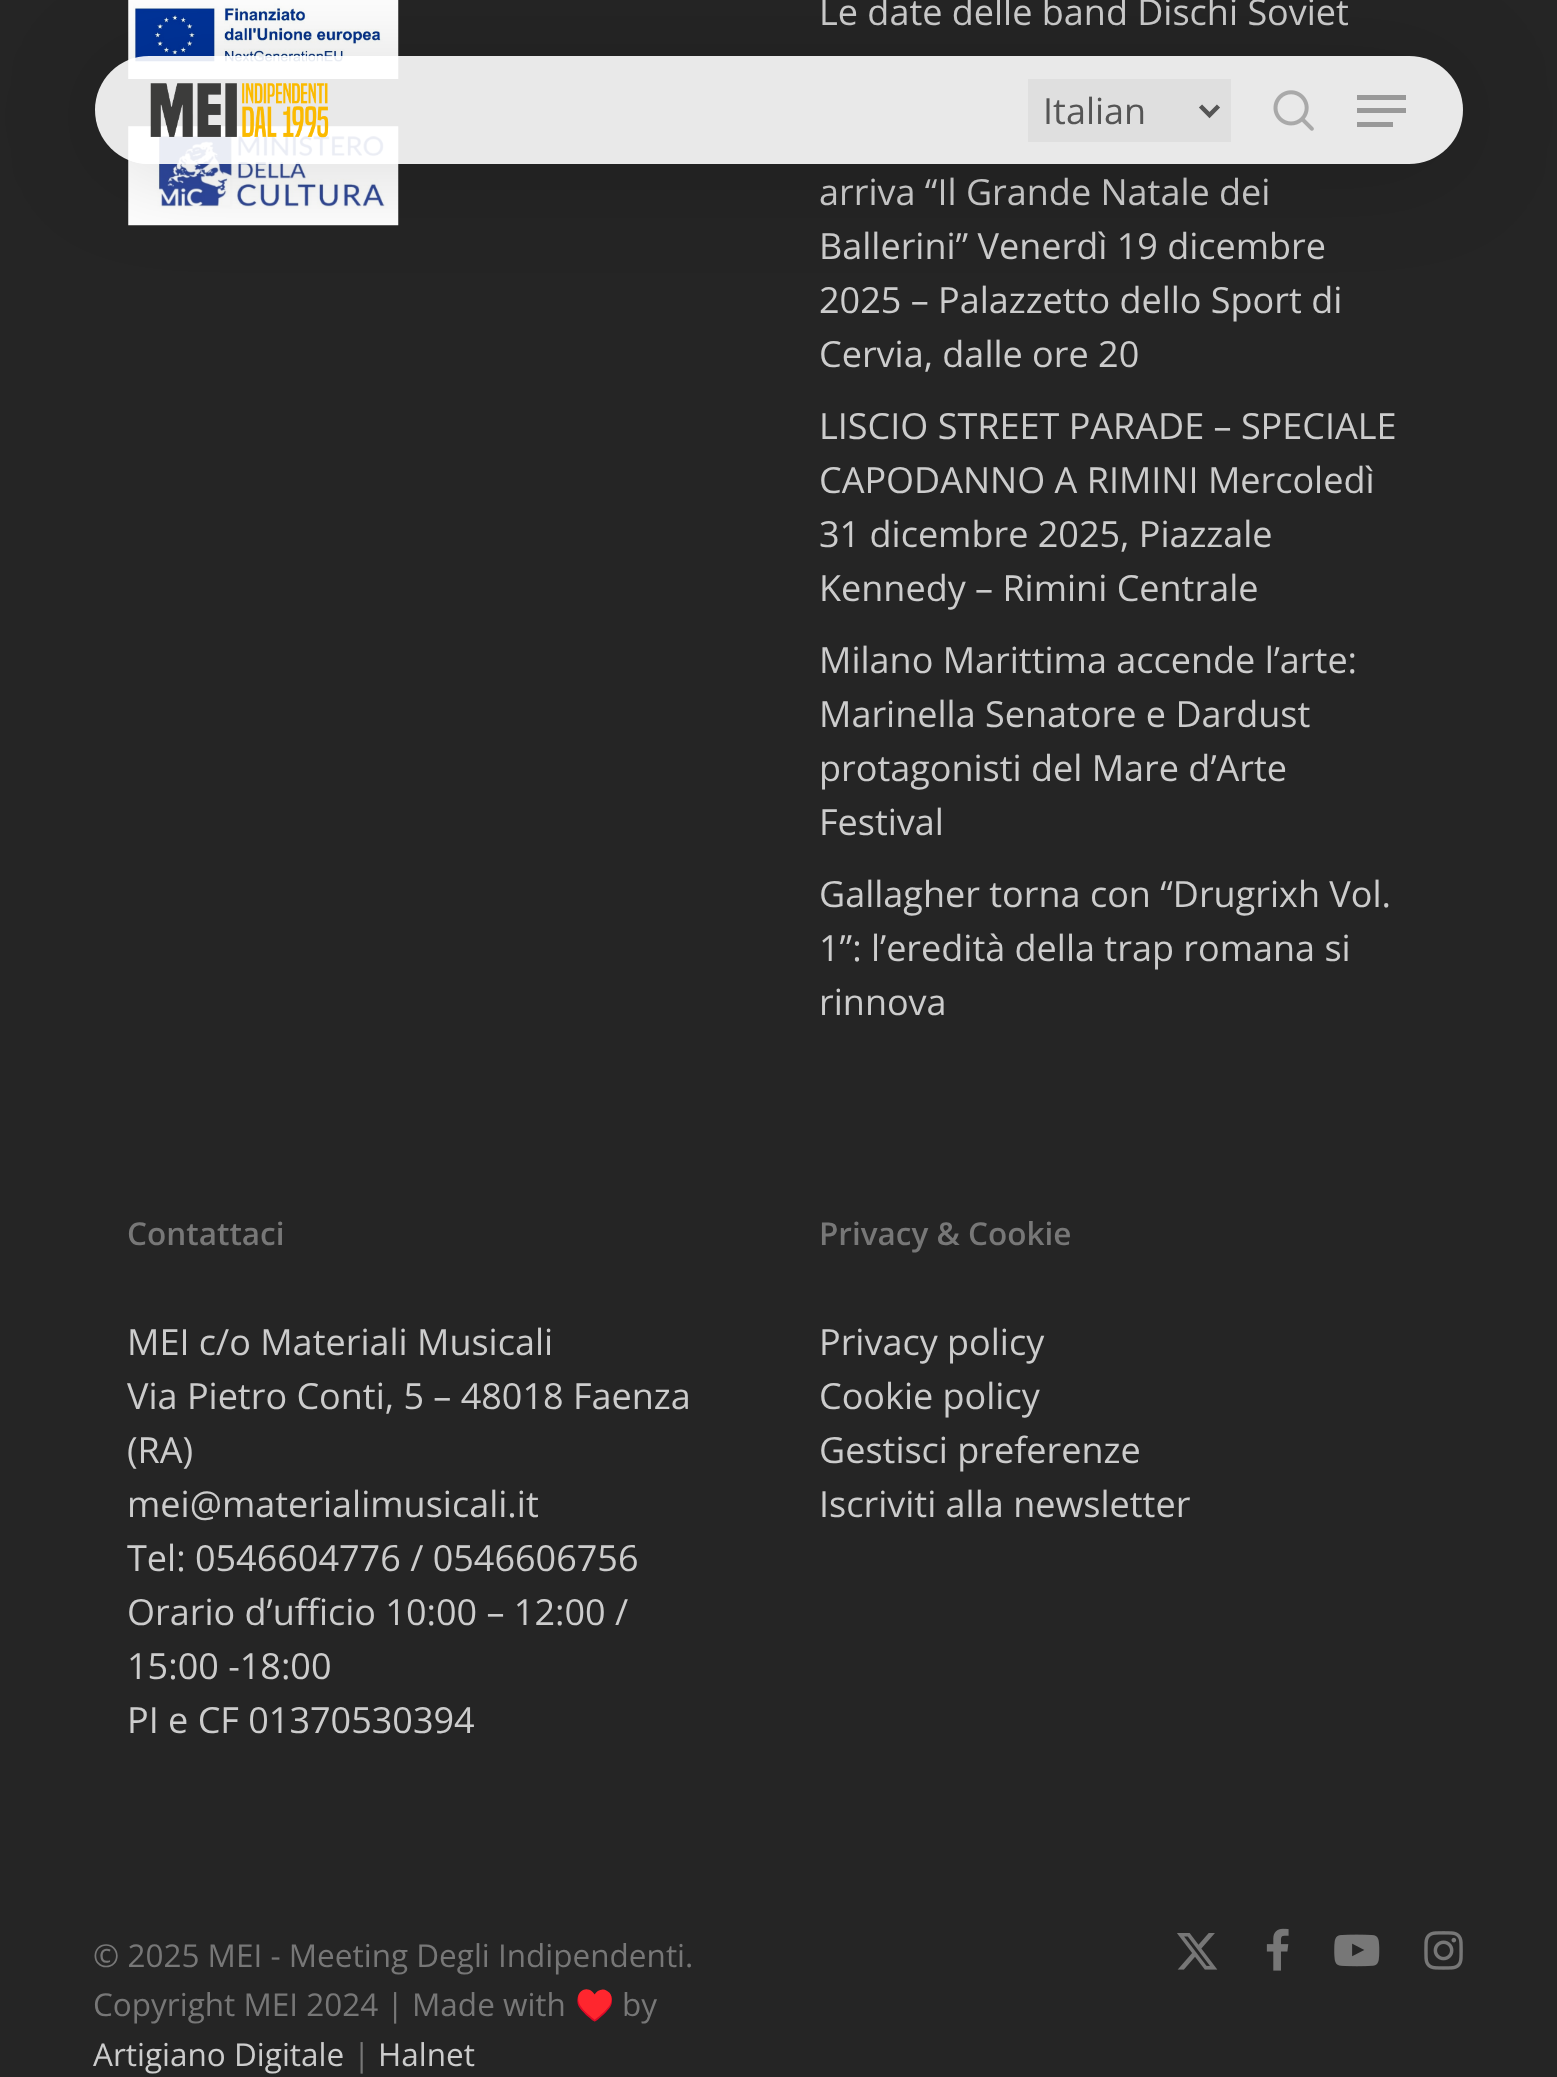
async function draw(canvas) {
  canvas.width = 1557;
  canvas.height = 2077;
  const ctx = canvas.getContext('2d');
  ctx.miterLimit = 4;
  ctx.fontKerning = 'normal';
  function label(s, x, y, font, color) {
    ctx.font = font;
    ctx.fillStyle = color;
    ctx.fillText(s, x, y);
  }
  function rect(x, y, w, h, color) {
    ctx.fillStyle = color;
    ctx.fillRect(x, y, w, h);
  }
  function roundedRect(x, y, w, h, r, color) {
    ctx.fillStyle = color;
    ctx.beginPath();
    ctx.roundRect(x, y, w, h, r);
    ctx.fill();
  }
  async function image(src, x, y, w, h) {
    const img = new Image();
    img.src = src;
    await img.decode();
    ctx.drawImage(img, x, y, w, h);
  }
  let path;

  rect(0, 0, 1557, 2077, '#252525');
  await image('assets/img1.png', 128, 0, 271, 79);
  await image('assets/img2.png', 128, 126, 271, 100);
  label('Le date delle band Dischi Soviet', 819, 25, '36px Open Sans', '#ccc');
  label('arriva “Il Grande Natale dei', 819, 205, '36px Open Sans', '#ccc');
  label('Ballerini” Venerdì 19 dicembre', 819, 259, '36px Open Sans', '#ccc');
  label('2025 – Palazzetto dello Sport di', 819, 313, '36px Open Sans', '#ccc');
  label('Cervia, dalle ore 20', 819, 367, '36px Open Sans', '#ccc');
  label('LISCIO STREET PARADE – SPECIALE', 819, 439, '36px Open Sans', '#ccc');
  label('CAPODANNO A RIMINI Mercoledì', 819, 493, '36px Open Sans', '#ccc');
  label('31 dicembre 2025, Piazzale', 819, 547, '36px Open Sans', '#ccc');
  label('Kennedy – Rimini Centrale', 819, 601, '36px Open Sans', '#ccc');
  label('Milano Marittima accende l’arte:', 819, 673, '36px Open Sans', '#ccc');
  label('Marinella Senatore e Dardust', 819, 727, '36px Open Sans', '#ccc');
  label('protagonisti del Mare d’Arte', 819, 781, '36px Open Sans', '#ccc');
  label('Festival', 819, 835, '36px Open Sans', '#ccc');
  label('Gallagher torna con “Drugrixh Vol.', 819, 907, '36px Open Sans', '#ccc');
  label('1”: l’eredità della trap romana si', 819, 961, '36px Open Sans', '#ccc');
  label('rinnova', 819, 1015, '36px Open Sans', '#ccc');
  label('Contattaci', 127, 1245, '600 31.5px Open Sans', '#777');
  label('MEI c/o Materiali Musicali', 127, 1355, '36px Open Sans', '#ccc');
  label('Via Pietro Conti, 5 – 48018 Faenza', 127, 1409, '36px Open Sans', '#ccc');
  label('(RA)', 127, 1463, '36px Open Sans', '#ccc');
  label('mei@materialimusicali.it', 127, 1517, '36px Open Sans', '#ccc');
  label('Tel: 0546604776 / 0546606756', 127, 1571, '36px Open Sans', '#ccc');
  label('Orario d’ufficio 10:00 – 12:00 /', 127, 1625, '36px Open Sans', '#ccc');
  label('15:00 -18:00', 127, 1679, '36px Open Sans', '#ccc');
  label('PI e CF 01370530394', 127, 1733, '36px Open Sans', '#ccc');
  label('Privacy & Cookie', 819, 1245, '600 31.5px Open Sans', '#777');
  label('Privacy policy', 819, 1355, '36px Open Sans', '#ccc');
  label('Cookie policy', 819, 1409, '36px Open Sans', '#ccc');
  label('Gestisci preferenze', 819, 1463, '36px Open Sans', '#ccc');
  label('Iscriviti alla newsletter', 819, 1517, '36px Open Sans', '#ccc');
  label('© 2025 MEI - Meeting Degli Indipendenti.', 93, 1967, '31.5px Open Sans', '#777');
  label('Copyright MEI 2024 | Made with', 93, 2016, '31.5px Open Sans', '#777');
  label('♥️', 575, 2016, '31.5px Noto Color Emoji', '#777');
  label('by', 622, 2016, '31.5px Open Sans', '#777');
  label('Artigiano Digitale', 93, 2066, '31.5px Open Sans', '#ccc');
  label('|', 353, 2066, '31.5px Open Sans', '#777');
  label('Halnet', 378, 2066, '31.5px Open Sans', '#ccc');
  await image('assets/img3.png', 1177, 1933, 41, 37);
  await image('assets/img4.png', 1266, 1928, 23, 43);
  await image('assets/img5.png', 1334, 1934, 46, 33);
  await image('assets/img6.png', 1424, 1931, 39, 39);
  ctx.save();
  path = new Path2D('M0 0H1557V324H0ZM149 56H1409C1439 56 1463 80 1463 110C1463 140 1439 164 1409 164H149C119 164 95 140 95 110C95 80 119 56 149 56Z');
  ctx.clip(path, 'evenodd');
  ctx.fillStyle = '#00000026';
  ctx.filter = 'blur(50.5px)';
  ctx.beginPath();
  ctx.roundRect(95, 63, 1368, 108, 54);
  ctx.fill();
  ctx.filter = 'none';
  ctx.restore();
  roundedRect(95, 56, 1368, 108, 54, '#ffffffe6');
  await image('assets/img7.png', 150, 83, 179, 55);
  rect(1028, 79, 203, 63, '#0000000a');
  path = new Path2D('M1200.5 106L1209.5 115L1218.5 106');
  ctx.strokeStyle = '#555';
  ctx.lineWidth = 4.5;
  ctx.stroke(path);
  label('Italian', 1043, 124, '36px Open Sans', '#555');
  await image('assets/img8.png', 1273, 90, 41, 41);
  rect(1357, 95, 49, 5, '#999');
  rect(1357, 122, 36, 5, '#999');
  rect(1357, 108, 49, 5, '#999');
}

draw(document.querySelector('canvas'));
